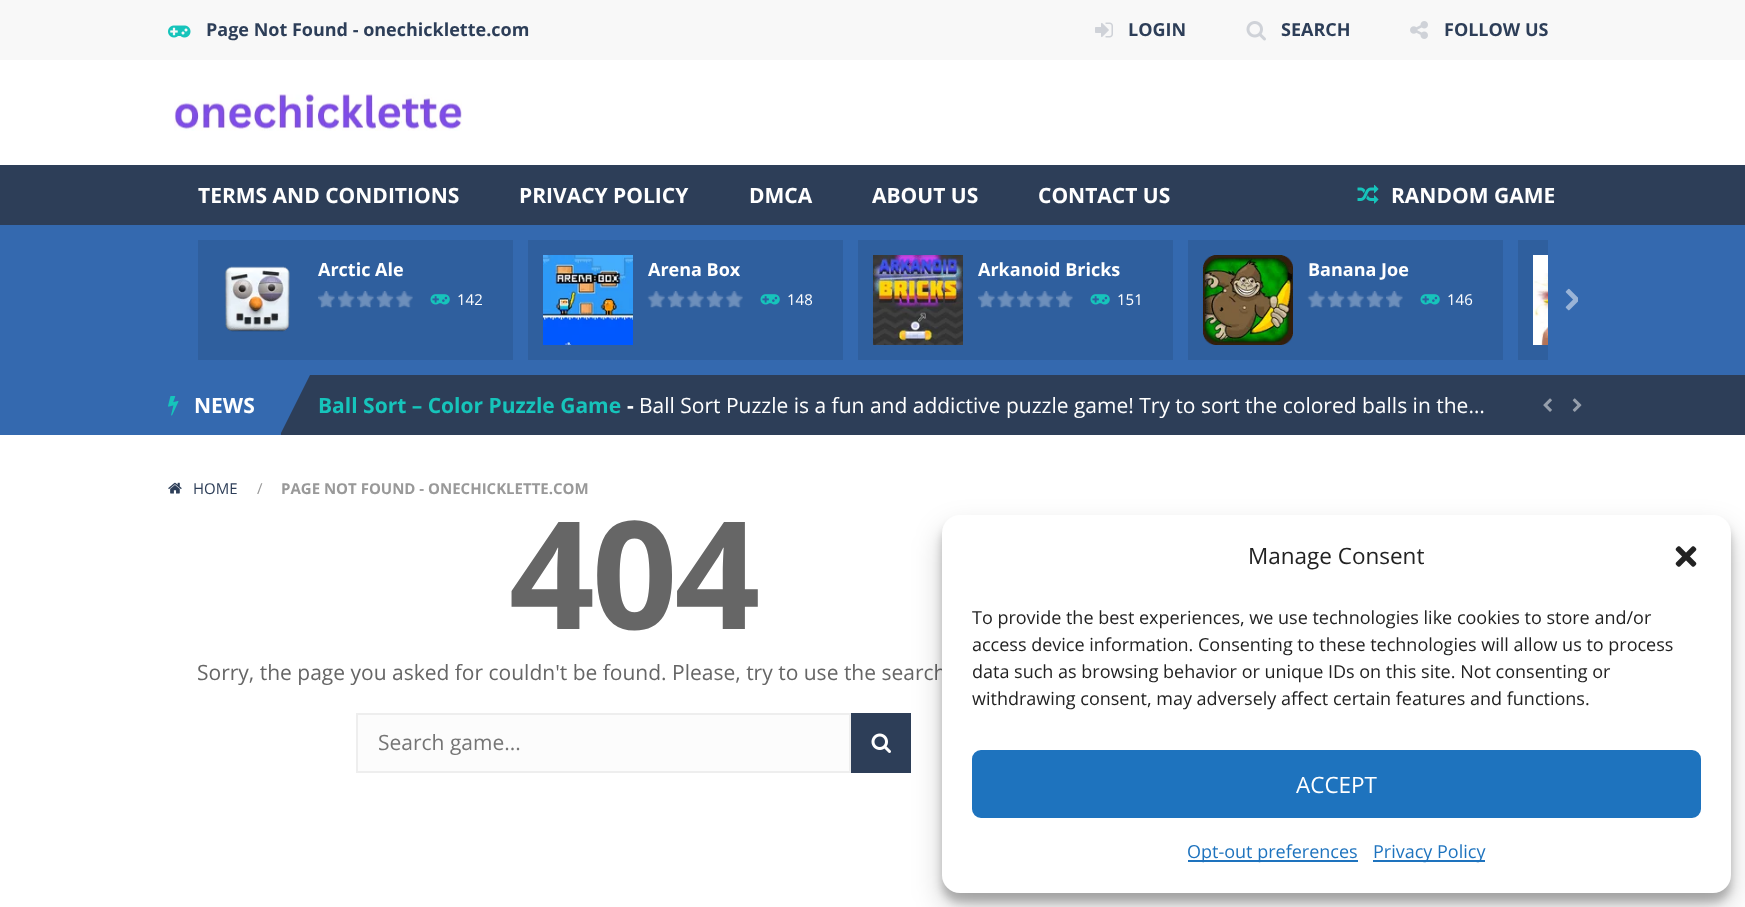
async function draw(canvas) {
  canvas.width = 1745;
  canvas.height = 907;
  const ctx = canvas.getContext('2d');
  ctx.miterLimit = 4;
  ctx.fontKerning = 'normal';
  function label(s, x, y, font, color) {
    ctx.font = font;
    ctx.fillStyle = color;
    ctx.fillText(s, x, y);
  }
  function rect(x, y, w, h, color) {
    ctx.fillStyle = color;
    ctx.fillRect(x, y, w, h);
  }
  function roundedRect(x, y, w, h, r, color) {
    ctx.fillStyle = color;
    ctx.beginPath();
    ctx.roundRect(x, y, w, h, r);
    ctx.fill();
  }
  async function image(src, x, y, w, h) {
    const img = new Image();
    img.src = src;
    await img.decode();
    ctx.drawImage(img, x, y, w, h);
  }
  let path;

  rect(0, 0, 1745, 907, '#fff');
  rect(0, 0, 1745, 60, '#f8f8f8');
  await image('assets/img1.png', 168, 25, 23, 13);
  label('Page Not Found - onechicklette.com', 206, 36, 'bold 18px Open Sans', '#2d3e58');
  await image('assets/img2.png', 1095, 22, 18, 16);
  label('LOGIN', 1128, 36, 'bold 18px Open Sans', '#2d3e58');
  await image('assets/img3.png', 1246, 21, 20, 20);
  label('SEARCH', 1281, 36, 'bold 18px Open Sans', '#2d3e58');
  await image('assets/img4.png', 1410, 21, 18, 18);
  label('FOLLOW US', 1444, 36, 'bold 18px Open Sans', '#2d3e58');
  await image('assets/img5.png', 174, 94, 288, 37);
  rect(0, 165, 1745, 60, '#2d3e58');
  label('TERMS AND CONDITIONS', 198, 203, 'bold 21px Open Sans', '#fff');
  label('PRIVACY POLICY', 519, 203, 'bold 21px Open Sans', '#fff');
  label('DMCA', 749, 203, 'bold 21px Open Sans', '#fff');
  label('ABOUT US', 872, 203, 'bold 21px Open Sans', '#fff');
  label('CONTACT US', 1038, 203, 'bold 21px Open Sans', '#fff');
  await image('assets/img6.png', 1357, 184, 22, 20);
  label('RANDOM GAME', 1391, 203, 'bold 21px Open Sans', '#fff');
  rect(0, 225, 1745, 150, '#3469af');
  rect(198, 240, 315, 120, '#2f5f9e');
  await image('assets/img7.png', 224, 266, 66, 66);
  label('Arctic Ale', 318, 276, 'bold 18px Open Sans', '#fff');
  await image('assets/img8.png', 318, 291, 17, 17);
  await image('assets/img9.png', 338, 291, 17, 17);
  await image('assets/img8.png', 357, 291, 17, 17);
  await image('assets/img10.png', 376, 291, 18, 17);
  await image('assets/img11.png', 395, 291, 18, 17);
  await image('assets/img12.png', 430, 294, 20, 11);
  label('142', 457, 305, '15px Open Sans', '#fff');
  rect(528, 240, 315, 120, '#2f5f9e');
  await image('assets/img13.png', 543, 255, 90, 90);
  label('Arena Box', 648, 276, 'bold 18px Open Sans', '#fff');
  await image('assets/img11.png', 647, 291, 18, 17);
  await image('assets/img10.png', 667, 291, 18, 17);
  await image('assets/img11.png', 686, 291, 18, 17);
  await image('assets/img10.png', 706, 291, 18, 17);
  await image('assets/img11.png', 725, 291, 18, 17);
  await image('assets/img12.png', 760, 294, 20, 11);
  label('148', 787, 305, '15px Open Sans', '#fff');
  rect(858, 240, 315, 120, '#2f5f9e');
  await image('assets/img14.png', 873, 255, 90, 90);
  label('Arkanoid Bricks', 978, 276, 'bold 18px Open Sans', '#fff');
  await image('assets/img8.png', 978, 291, 17, 17);
  await image('assets/img15.png', 997, 291, 18, 17);
  await image('assets/img8.png', 1017, 291, 17, 17);
  await image('assets/img15.png', 1036, 291, 18, 17);
  await image('assets/img8.png', 1056, 291, 17, 17);
  await image('assets/img12.png', 1090, 294, 20, 11);
  label('151', 1117, 305, '15px Open Sans', '#fff');
  rect(1188, 240, 315, 120, '#2f5f9e');
  await image('assets/img16.png', 1203, 255, 90, 90);
  label('Banana Joe', 1308, 276, 'bold 18px Open Sans', '#fff');
  await image('assets/img11.png', 1307, 291, 18, 17);
  await image('assets/img10.png', 1327, 291, 18, 17);
  await image('assets/img17.png', 1346, 291, 18, 17);
  await image('assets/img10.png', 1366, 291, 18, 17);
  await image('assets/img8.png', 1386, 291, 17, 17);
  await image('assets/img12.png', 1420, 294, 20, 11);
  label('146', 1447, 305, '15px Open Sans', '#fff');
  rect(1518, 240, 30, 120, '#2f5f9e');
  await image('assets/img18.png', 1533, 255, 15, 90);
  await image('assets/img19.png', 1565, 288, 13, 23);
  rect(281, 375, 1464, 60, '#2d3e58');
  rect(0, 375, 281, 60, '#3469af');
  label('Ball Sort – Color Puzzle Game', 318, 413, 'bold 21px Open Sans', '#16c4bb');
  label('-', 627, 413, 'bold 21px Open Sans', '#fff');
  label('Ball Sort Puzzle is a fun and addictive puzzle game! Try to sort the colored balls in the…', 639, 413, '21px Open Sans', '#fff');
  await image('assets/img20.png', 1543, 398, 9, 14);
  await image('assets/img21.png', 1572, 398, 10, 14);
  await image('assets/img22.png', 168, 396, 11, 20);
  label('NEWS', 194, 413, 'bold 21px Open Sans', '#fff');
  ctx.fillStyle = '#3469af';
  path = new Path2D('M280 375H310L280 435Z');
  ctx.fill(path);
  await image('assets/img23.png', 168, 482, 14, 12);
  label('HOME', 193, 494, '15px Open Sans', '#2d3e58');
  label('/', 257, 494, '15px Open Sans', '#999');
  label('PAGE NOT FOUND - ONECHICKLETTE.COM', 281, 494, 'bold 15px Open Sans', '#999');
  ctx.letterSpacing = '-3px';
  label('404', 509, 629, 'bold 150px Open Sans', '#666');
  ctx.letterSpacing = '0px';
  label('Sorry, the page you asked for couldn\'t be found. Please, try to use the search', 197, 680, '21px Open Sans', '#666');
  ctx.fillStyle = '#fcfcfc';
  ctx.beginPath();
  ctx.rect(357, 714, 493, 58);
  ctx.fill();
  ctx.strokeStyle = '#eee';
  ctx.lineWidth = 2;
  ctx.stroke();
  label('Search game...', 378, 750, '21px Open Sans', '#757575');
  rect(851, 713, 60, 60, '#2d3e58');
  await image('assets/img24.png', 871, 733, 20, 20);
  ctx.fillStyle = '#0000003b';
  ctx.filter = 'blur(4.5px)';
  ctx.beginPath();
  ctx.roundRect(942, 524, 789, 378, 18);
  ctx.fill();
  ctx.filter = 'none';
  ctx.fillStyle = '#00000030';
  ctx.filter = 'blur(15px)';
  ctx.beginPath();
  ctx.roundRect(942, 530, 789, 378, 18);
  ctx.fill();
  ctx.filter = 'none';
  roundedRect(942, 515, 789, 378, 18, '#fff');
  label('Manage Consent', 1248, 564, '22.5px Open Sans', '#222');
  await image('assets/img25.png', 1675, 546, 22, 21);
  label('To provide the best experiences, we use technologies like cookies to store and/or', 972, 624, '18px Open Sans', '#222');
  label('access device information. Consenting to these technologies will allow us to process', 972, 651, '18px Open Sans', '#222');
  label('data such as browsing behavior or unique IDs on this site. Not consenting or', 972, 678, '18px Open Sans', '#222');
  label('withdrawing consent, may adversely affect certain features and functions.', 972, 705, '18px Open Sans', '#222');
  ctx.fillStyle = '#1e73be';
  ctx.beginPath();
  ctx.roundRect(973, 751, 727, 66, 8);
  ctx.fill();
  ctx.strokeStyle = '#1e73be';
  ctx.stroke();
  label('ACCEPT', 1296, 793, '22.5px Open Sans', '#fff');
  rect(1188, 860, 170, 2, '#1e73be');
  label('Opt-out preferences', 1187, 858, '18px Open Sans', '#1e73be');
  rect(1373, 860, 112, 2, '#1e73be');
  label('Privacy Policy', 1373, 858, '18px Open Sans', '#1e73be');
}

draw(document.querySelector('canvas'));
